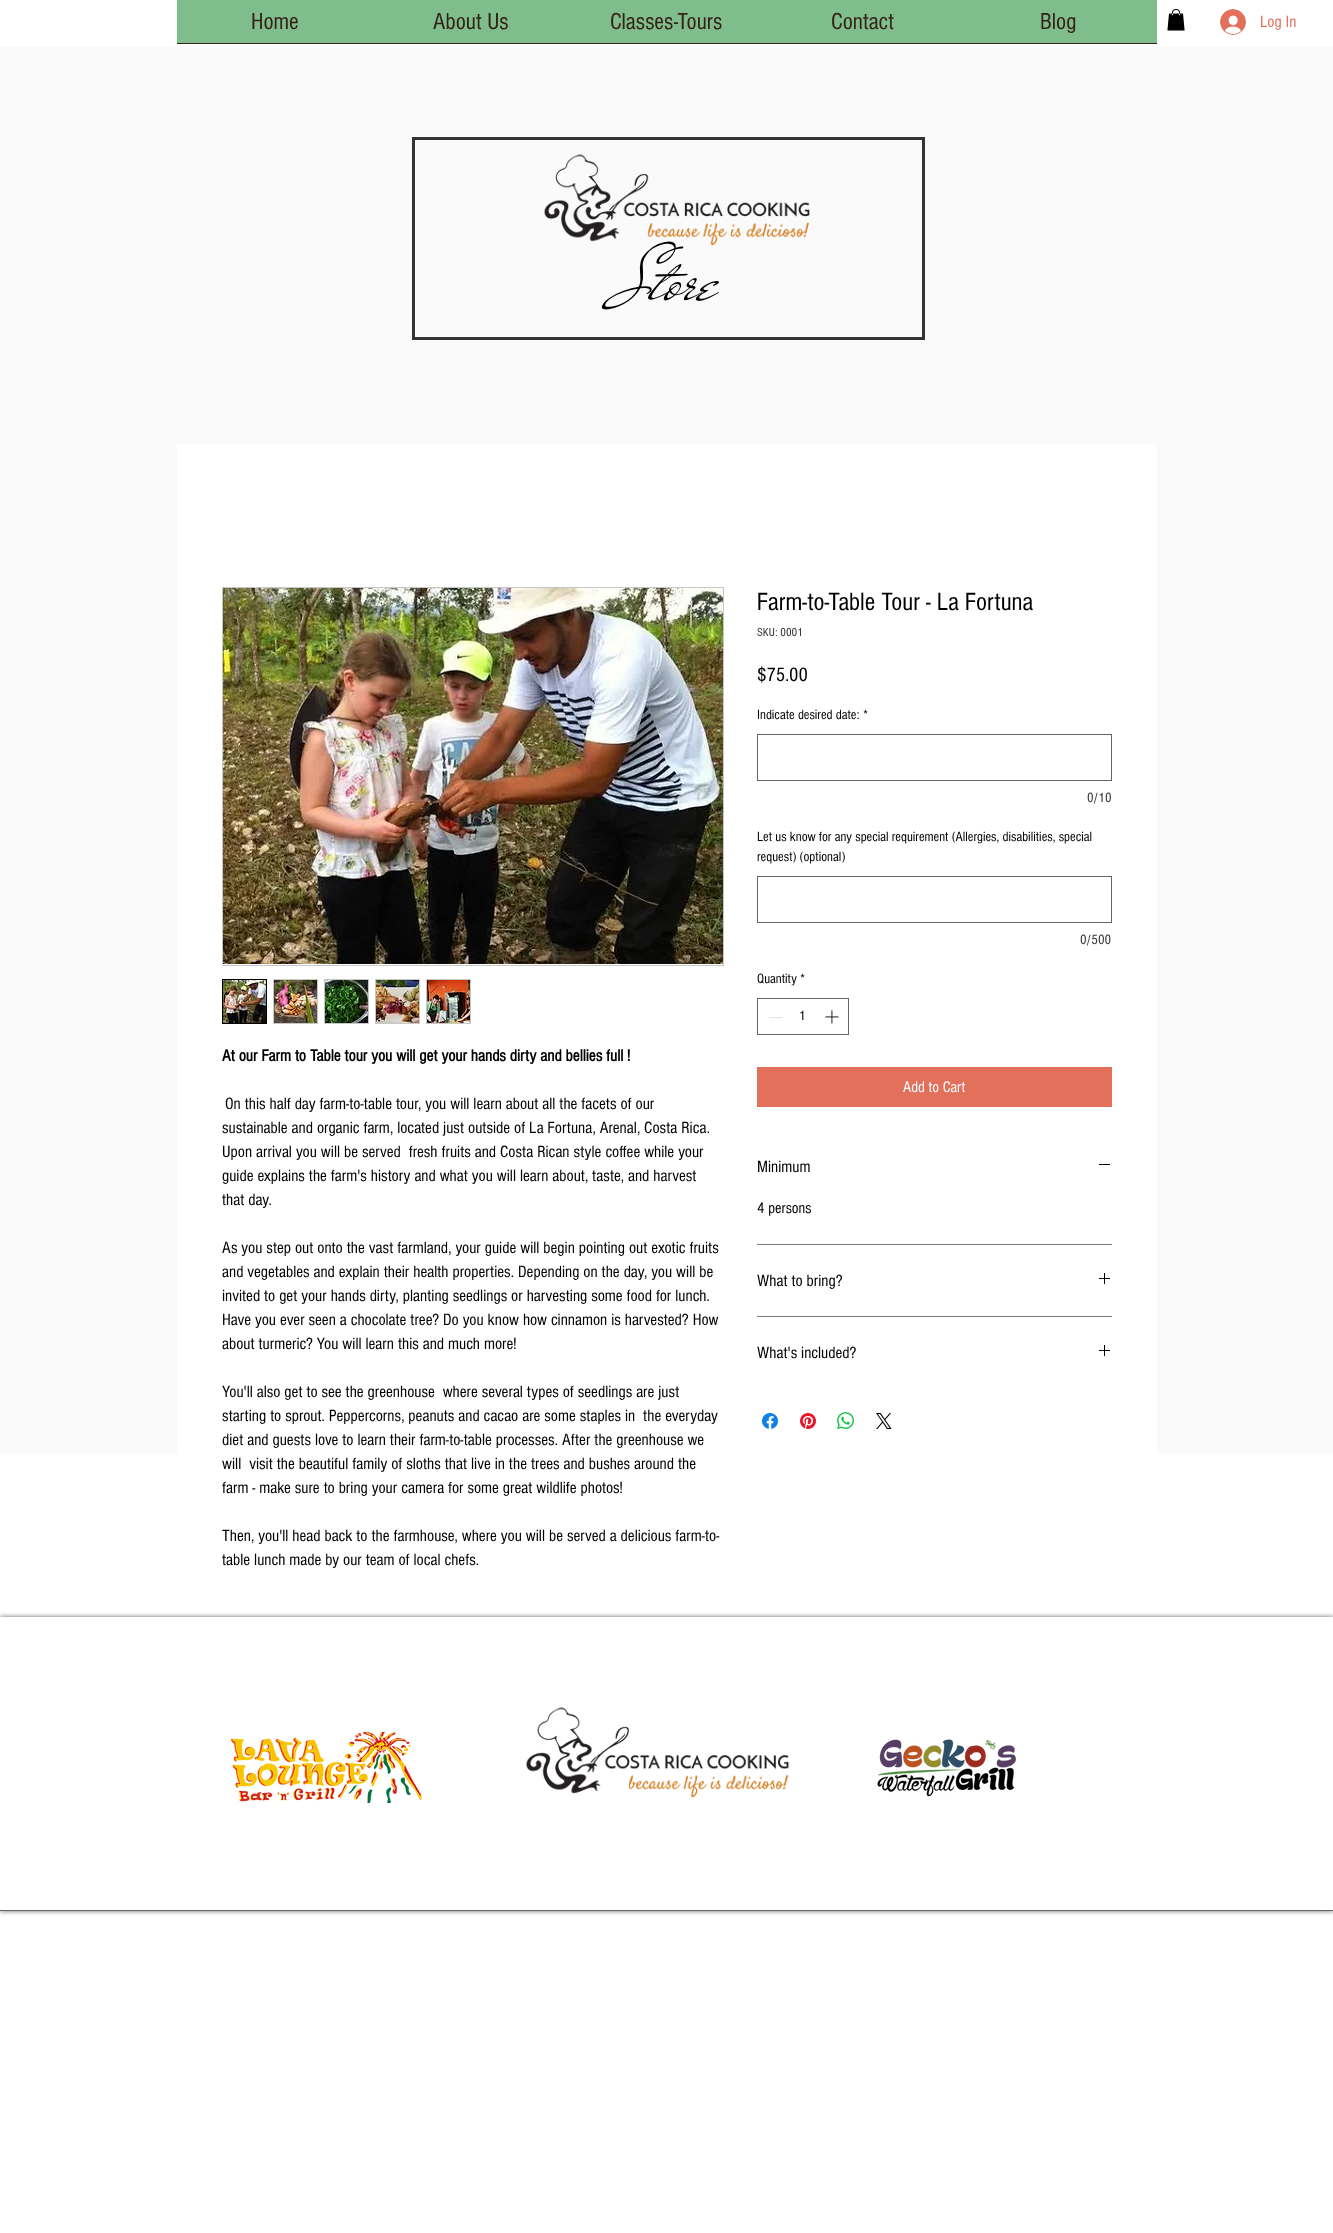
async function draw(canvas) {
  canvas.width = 1333;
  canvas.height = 2233;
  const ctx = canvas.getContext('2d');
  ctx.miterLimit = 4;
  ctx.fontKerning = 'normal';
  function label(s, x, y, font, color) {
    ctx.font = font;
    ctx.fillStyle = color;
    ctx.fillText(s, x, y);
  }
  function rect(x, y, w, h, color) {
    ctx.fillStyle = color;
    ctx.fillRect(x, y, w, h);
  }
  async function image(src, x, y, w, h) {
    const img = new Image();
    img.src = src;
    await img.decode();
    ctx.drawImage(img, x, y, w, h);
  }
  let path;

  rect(0, 0, 1333, 2233, '#fff');
  rect(177, 0, 980, 43, '#80bd8d');
  rect(177, 43, 980, 1, '#342216');
  label('Home', 251, 29, '24px "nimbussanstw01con"', '#342216');
  label('About Us', 433, 29, '24px "nimbussanstw01con"', '#342216');
  label('Classes-Tours', 610, 29, '24px "nimbussanstw01con"', '#342216');
  label('Contact', 831, 29, '24px "nimbussanstw01con"', '#342216');
  label('Blog', 1040, 29, '24px "nimbussanstw01con"', '#342216');
  await image('assets/img1.png', 1167, 9, 18, 22);
  await image('assets/img2.png', 1220, 9, 26, 26);
  label('Log In', 1260, 27, '17px "nimbussanstw01con"', '#e2705a');
  rect(0, 47, 1333, 1407, '#fafafa');
  ctx.strokeStyle = '#333';
  ctx.lineWidth = 3;
  ctx.strokeRect(413.5, 138.5, 510, 200);
  await image('assets/img3.png', 544, 154, 266, 92);
  label('Store', 615, 299, 'italic 75px Mr De Haviland', '#000');
  rect(177, 444, 980, 1010, '#fff');
  ctx.strokeStyle = '#c7c7c7';
  ctx.lineWidth = 1;
  ctx.strokeRect(222.5, 587.5, 501, 378);
  await image('assets/img4.png', 223, 588, 500, 376);
  ctx.strokeStyle = '#000';
  ctx.strokeRect(222.5, 979.5, 44, 44);
  await image('assets/img5.png', 223, 980, 43, 43);
  ctx.strokeStyle = '#c7c7c7';
  ctx.strokeRect(273.5, 979.5, 44, 44);
  await image('assets/img6.png', 274, 980, 43, 43);
  ctx.strokeRect(324.5, 979.5, 44, 44);
  await image('assets/img7.png', 325, 980, 43, 43);
  ctx.strokeRect(375.5, 979.5, 44, 44);
  await image('assets/img8.png', 376, 980, 43, 43);
  ctx.strokeRect(426.5, 979.5, 44, 44);
  await image('assets/img9.png', 427, 980, 43, 43);
  label('At our Farm to Table tour you will get your hands dirty and bellies full !', 222, 1061, 'bold 17px "nimbussanstw01con"', '#000');
  label('On this half day farm-to-table tour, you will learn about all the facets of our', 225, 1109, '17px "nimbussanstw01con"', '#000');
  label('sustainable and organic farm, located just outside of La Fortuna, Arenal, Costa Rica.', 222, 1133, '17px "nimbussanstw01con"', '#000');
  label('Upon arrival you will be served  fresh fruits and Costa Rican style coffee while your', 222, 1157, '17px "nimbussanstw01con"', '#000');
  label('guide explains the farm\'s history and what you will learn about, taste, and harvest', 222, 1181, '17px "nimbussanstw01con"', '#000');
  label('that day.', 222, 1205, '17px "nimbussanstw01con"', '#000');
  label('As you step out onto the vast farmland, your guide will begin pointing out exotic fruits', 222, 1253, '17px "nimbussanstw01con"', '#000');
  label('and vegetables and explain their health properties. Depending on the day, you will be', 222, 1277, '17px "nimbussanstw01con"', '#000');
  label('invited to get your hands dirty, planting seedlings or harvesting some food for lunch.', 222, 1301, '17px "nimbussanstw01con"', '#000');
  label('Have you ever seen a chocolate tree? Do you know how cinnamon is harvested? How', 222, 1325, '17px "nimbussanstw01con"', '#000');
  label('about turmeric? You will learn this and much more!', 222, 1349, '17px "nimbussanstw01con"', '#000');
  label('You\'ll also get to see the greenhouse  where several types of seedlings are just', 222, 1397, '17px "nimbussanstw01con"', '#000');
  label('starting to sprout. Peppercorns, peanuts and cacao are some staples in  the everyday', 222, 1421, '17px "nimbussanstw01con"', '#000');
  label('diet and guests love to learn their farm-to-table processes. After the greenhouse we', 222, 1445, '17px "nimbussanstw01con"', '#000');
  label('will  visit the beautiful family of sloths that live in the trees and bushes around the', 222, 1469, '17px "nimbussanstw01con"', '#000');
  label('farm - make sure to bring your camera for some great wildlife photos!', 222, 1493, '17px "nimbussanstw01con"', '#000');
  label('Then, you\'ll head back to the farmhouse, where you will be served a delicious farm-to-', 222, 1541, '17px "nimbussanstw01con"', '#000');
  label('table lunch made by our team of local chefs.', 222, 1565, '17px "nimbussanstw01con"', '#000');
  label('Farm-to-Table Tour - La Fortuna', 757, 610, '26px "nimbussanstw01con"', '#000');
  label('SKU: 0001', 757, 636, '12px "nimbussanstw01con"', '#333');
  label('$75.00', 757, 681, '20px "nimbussanstw01con"', '#000');
  label('Indicate desired date:', 757, 719, '14px "nimbussanstw01con"', '#000');
  label('*', 863, 719, '14px "nimbussanstw01con"', '#000');
  ctx.strokeStyle = '#666';
  ctx.strokeRect(757.5, 734.5, 354, 46);
  label('0/10', 1087, 802, '14px "nimbussanstw01con"', '#333');
  label('Let us know for any special requirement (Allergies, disabilities, special', 757, 841, '14px "nimbussanstw01con"', '#000');
  label('request) (optional)', 757, 861, '14px "nimbussanstw01con"', '#000');
  ctx.strokeRect(757.5, 876.5, 354, 46);
  label('0/500', 1080, 944, '14px "nimbussanstw01con"', '#333');
  label('Quantity', 757, 983, '14px "nimbussanstw01con"', '#000');
  label('*', 800, 983, '14px "nimbussanstw01con"', '#000');
  ctx.strokeRect(757.5, 998.5, 91, 36);
  rect(769, 1017, 13, 1, '#e3e3e3');
  label('1', 799, 1020, '14px "nimbussanstw01con"', '#000');
  await image('assets/img10.png', 825, 1010, 14, 14);
  rect(757, 1067, 355, 40, '#e2705a');
  label('Add to Cart', 903, 1092, '16px "nimbussanstw01con"', '#fff');
  rect(757, 1244, 355, 1, '#777');
  label('Minimum', 757, 1172, '17px "nimbussanstw01con"', '#000');
  rect(1099, 1164, 11, 1, '#000');
  label('4 persons', 757, 1213, '16px "nimbussanstw01con"', '#000');
  rect(757, 1316, 355, 1, '#777');
  label('What to bring?', 757, 1286, '17px "nimbussanstw01con"', '#000');
  await image('assets/img11.png', 1099, 1273, 11, 11);
  label('What\'s included?', 757, 1358, '17px "nimbussanstw01con"', '#000');
  await image('assets/img11.png', 1099, 1345, 11, 11);
  await image('assets/img12.png', 762, 1413, 16, 16);
  await image('assets/img13.png', 800, 1413, 16, 16);
  await image('assets/img14.png', 837, 1412, 17, 17);
  await image('assets/img15.png', 876, 1413, 16, 16);
  ctx.save();
  path = new Path2D('M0 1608H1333V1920H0ZM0 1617H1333V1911H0Z');
  ctx.clip(path, 'evenodd');
  ctx.fillStyle = '#00000099';
  ctx.filter = 'blur(2.5px)';
  ctx.beginPath();
  ctx.rect(0, 1617, 1333, 294);
  ctx.fill();
  ctx.filter = 'none';
  ctx.restore();
  rect(0, 1910, 1333, 1, '#666');
  await image('assets/img16.png', 231, 1732, 191, 71);
  await image('assets/img17.png', 526, 1707, 264, 91);
  await image('assets/img18.png', 877, 1739, 139, 58);
}

draw(document.querySelector('canvas'));
